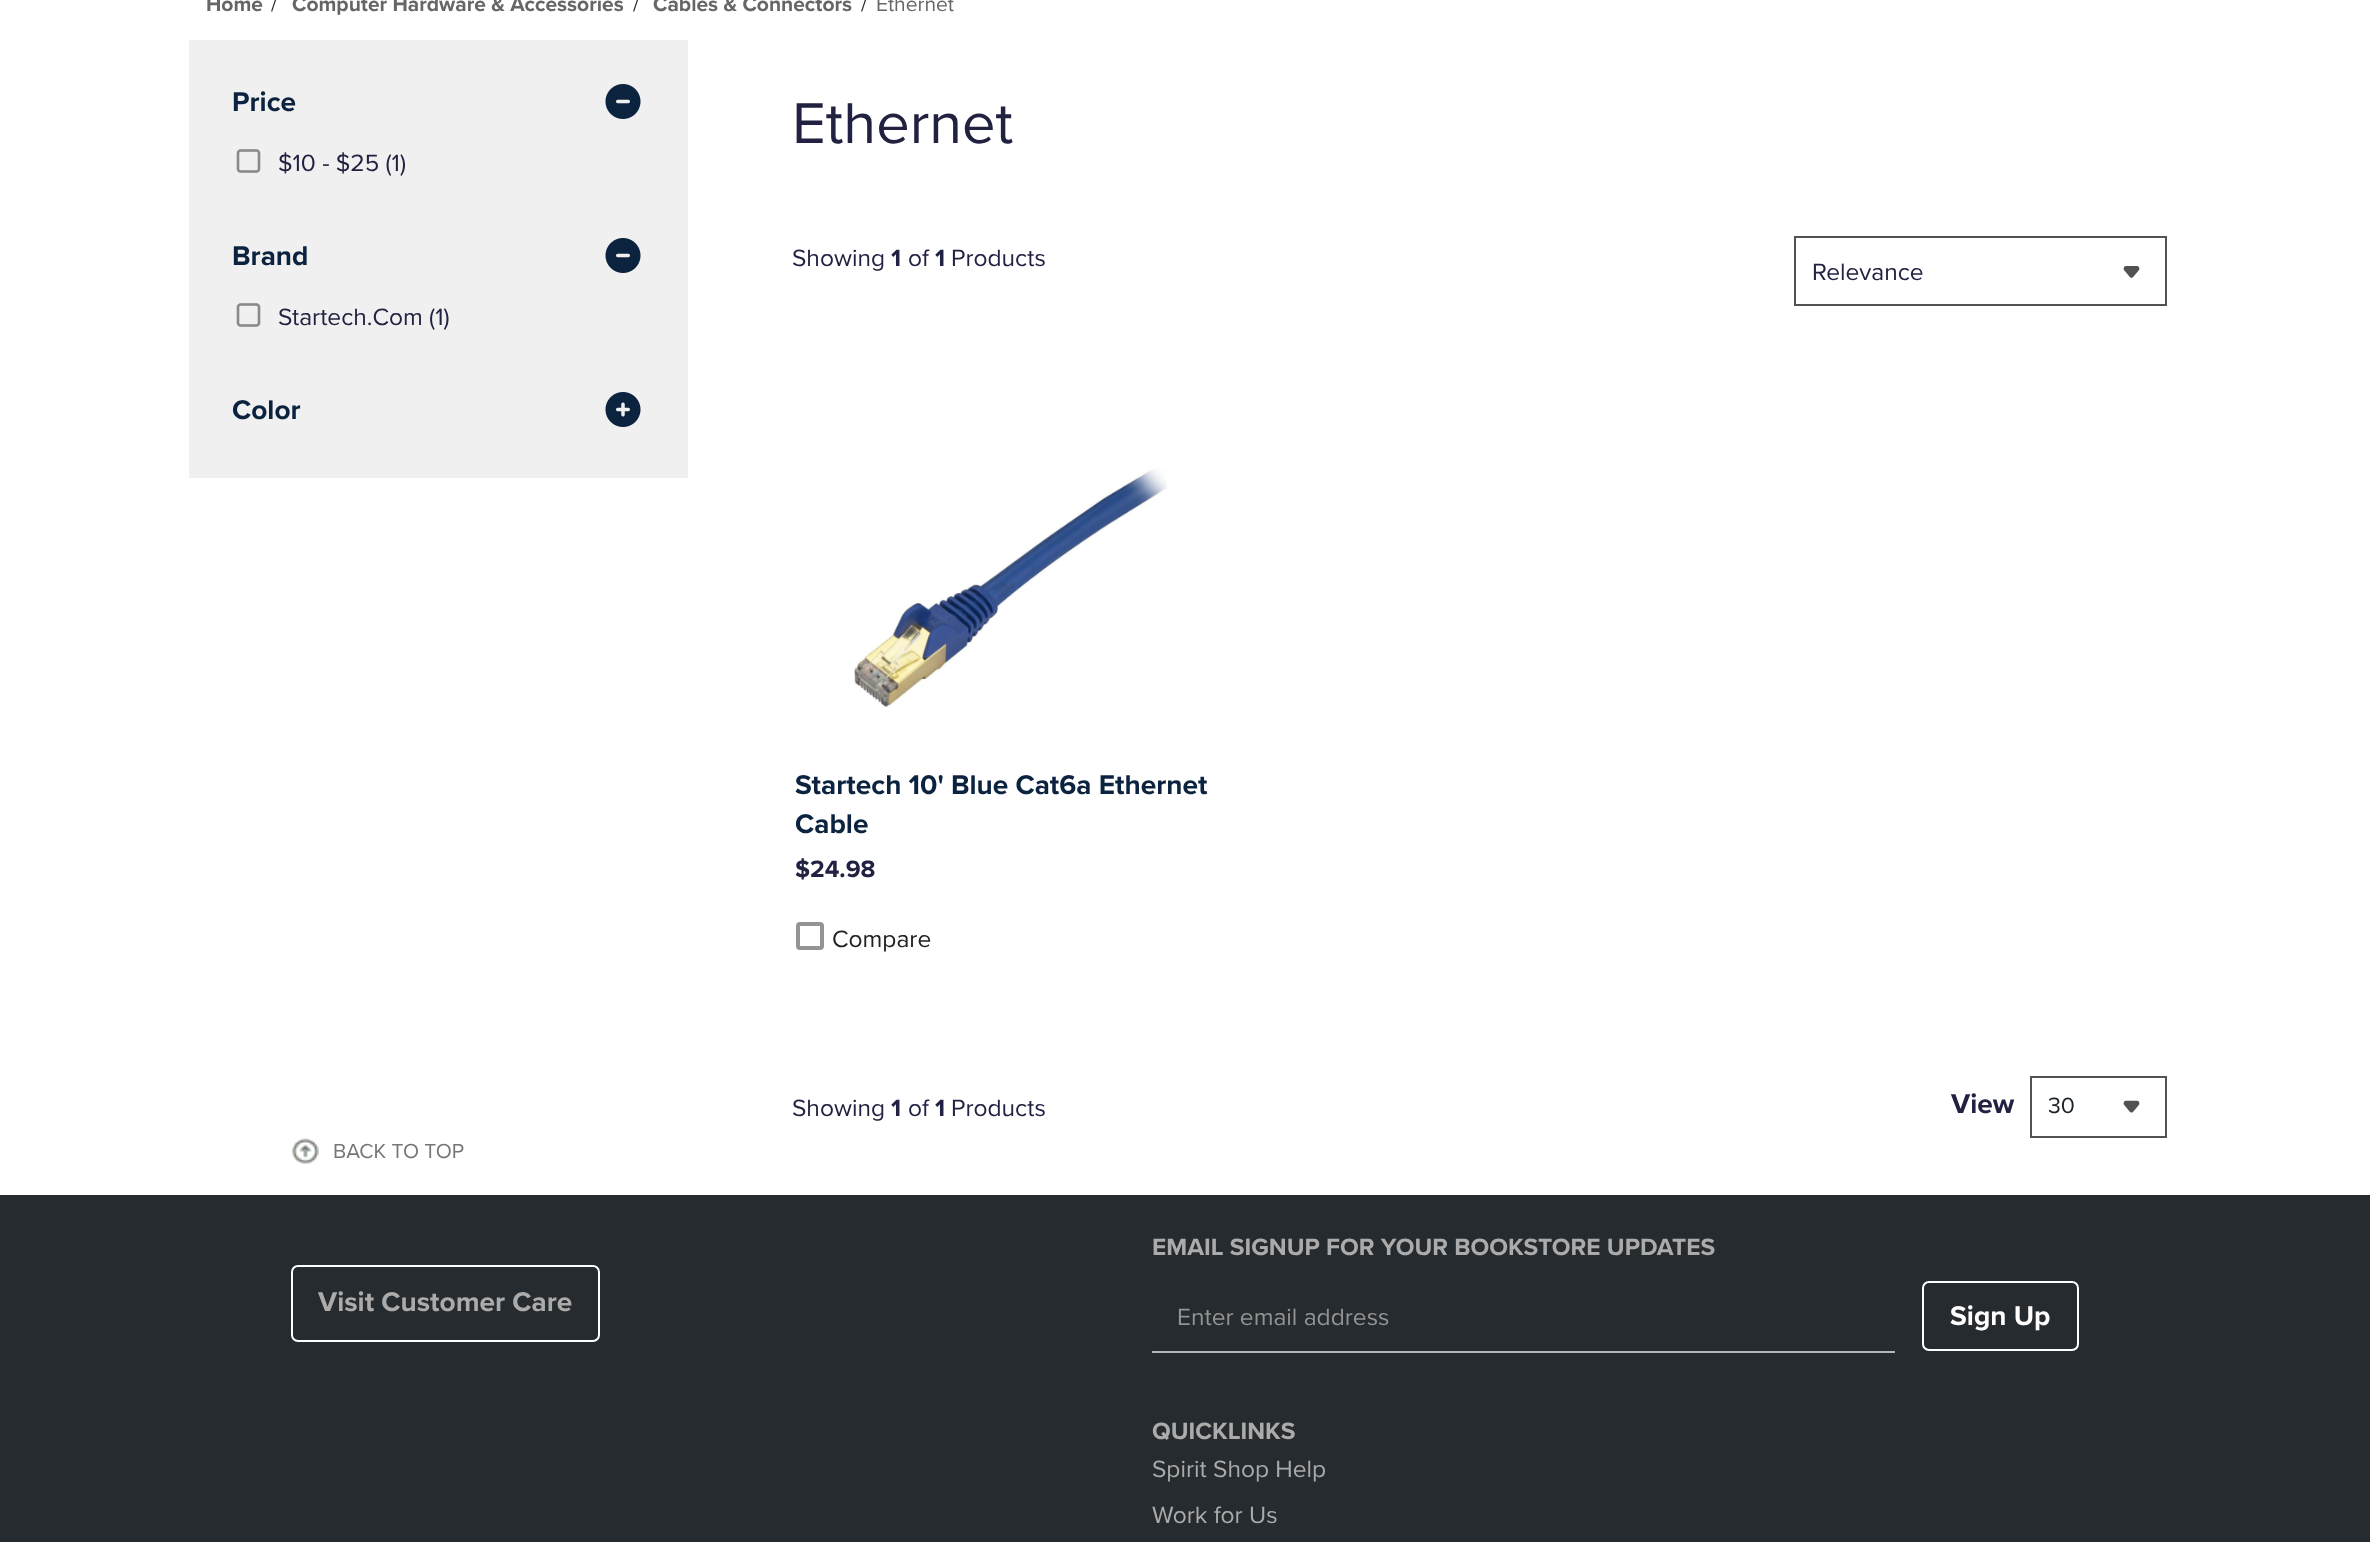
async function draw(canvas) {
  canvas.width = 2370;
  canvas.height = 1542;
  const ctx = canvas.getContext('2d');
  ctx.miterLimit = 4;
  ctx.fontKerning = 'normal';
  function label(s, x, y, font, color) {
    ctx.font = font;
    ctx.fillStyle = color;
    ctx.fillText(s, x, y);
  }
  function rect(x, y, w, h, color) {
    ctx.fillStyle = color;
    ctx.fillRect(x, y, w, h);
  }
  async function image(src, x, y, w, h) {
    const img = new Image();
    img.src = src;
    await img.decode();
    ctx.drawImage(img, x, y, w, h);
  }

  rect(0, 0, 2370, 1542, '#fff');
  label('Home', 206, 11, 'bold 21px Proxima Nova', '#666');
  label('/', 271, 11, '21px Proxima Nova', '#19212b');
  label('Computer Hardware & Accessories', 292, 11, 'bold 21px Proxima Nova', '#666');
  label('/', 633, 11, '21px Proxima Nova', '#19212b');
  label('Cables & Connectors', 653, 11, 'bold 21px Proxima Nova', '#666');
  label('/', 861, 11, '21px Proxima Nova', '#19212b');
  label('Ethernet', 876, 11, '21px Proxima Nova', '#666');
  rect(189, 40, 499, 438, '#f0f0f0');
  label('Price', 232, 111, 'bold 28px Proxima Nova', '#0c2340');
  await image('assets/img1.png', 605, 84, 36, 35);
  await image('assets/img2.png', 236, 149, 25, 24);
  label('$10 - $25 (1)', 278, 171, '24.5px Proxima Nova', '#212141');
  label('Brand', 232, 265, 'bold 28px Proxima Nova', '#0c2340');
  await image('assets/img1.png', 605, 238, 36, 35);
  await image('assets/img2.png', 236, 303, 25, 24);
  label('Startech.Com (1)', 278, 325, '24.5px Proxima Nova', '#212141');
  label('Color', 232, 419, 'bold 28px Proxima Nova', '#0c2340');
  await image('assets/img3.png', 605, 392, 36, 35);
  label('Ethernet', 792, 143, '59.5px Proxima Nova', '#212141');
  label('Showing', 792, 266, '24.5px Proxima Nova', '#212141');
  label('1', 891, 266, 'bold 24.5px Proxima Nova', '#212141');
  label('of', 908, 266, '24.5px Proxima Nova', '#212141');
  label('1', 935, 266, 'bold 24.5px Proxima Nova', '#212141');
  label('Products', 951, 266, '24.5px Proxima Nova', '#212141');
  await image('assets/img4.png', 2123, 266, 17, 12);
  ctx.strokeStyle = '#525252';
  ctx.lineWidth = 2;
  ctx.strokeRect(1795, 237, 371, 68);
  label('Relevance', 1812, 280, '24.5px Proxima Nova', '#212141');
  await image('assets/img5.png', 853, 468, 314, 240);
  label('Startech 10\' Blue Cat6a Ethernet', 795, 794, 'bold 28px Proxima Nova', '#0c2340');
  label('Cable', 795, 833, 'bold 28px Proxima Nova', '#0c2340');
  label('$24.98', 795, 877, 'bold 24.5px Proxima Nova', '#212141');
  ctx.beginPath();
  ctx.roundRect(798, 924, 24, 24, 2);
  ctx.strokeStyle = '#949494';
  ctx.lineWidth = 4;
  ctx.stroke();
  label('Compare', 832, 947, '24.5px Proxima Nova', '#212121');
  label('Showing', 792, 1116, '24.5px Proxima Nova', '#212141');
  label('1', 891, 1116, 'bold 24.5px Proxima Nova', '#212141');
  label('of', 908, 1116, '24.5px Proxima Nova', '#212141');
  label('1', 935, 1116, 'bold 24.5px Proxima Nova', '#212141');
  label('Products', 951, 1116, '24.5px Proxima Nova', '#212141');
  label('View', 1951, 1113, 'bold 28px Proxima Nova', '#212141');
  await image('assets/img6.png', 2123, 1100, 17, 13);
  ctx.strokeStyle = '#525252';
  ctx.lineWidth = 2;
  ctx.strokeRect(2031, 1077, 135, 60);
  label('30', 2048, 1113, '23px Proxima Nova', '#19212b');
  await image('assets/img7.png', 292, 1138, 27, 26);
  label('BACK TO TOP', 333, 1158, '21px Proxima Nova', '#757575');
  rect(0, 1195, 2370, 347, '#252b2f');
  ctx.beginPath();
  ctx.roundRect(292, 1266, 307, 75, 6);
  ctx.strokeStyle = '#fff';
  ctx.stroke();
  label('Visit Customer Care', 318, 1311, 'bold 28px Proxima Nova', '#ababab');
  label('EMAIL SIGNUP FOR YOUR BOOKSTORE UPDATES', 1152, 1255, 'bold 24.5px Proxima Nova', '#ababab');
  rect(1152, 1351, 743, 2, '#b7b7b7');
  label('Enter email address', 1177, 1325, '24.5px Proxima Nova', '#939393');
  ctx.beginPath();
  ctx.roundRect(1923, 1282, 155, 68, 6);
  ctx.stroke();
  label('Sign Up', 1950, 1325, 'bold 28px Proxima Nova', '#fff');
  label('QUICKLINKS', 1152, 1439, 'bold 24.5px Proxima Nova', '#ababab');
  label('Spirit Shop Help', 1152, 1477, '24.5px Proxima Nova', '#ababab');
  label('Work for Us', 1152, 1523, '24.5px Proxima Nova', '#ababab');
}

draw(document.querySelector('canvas'));
